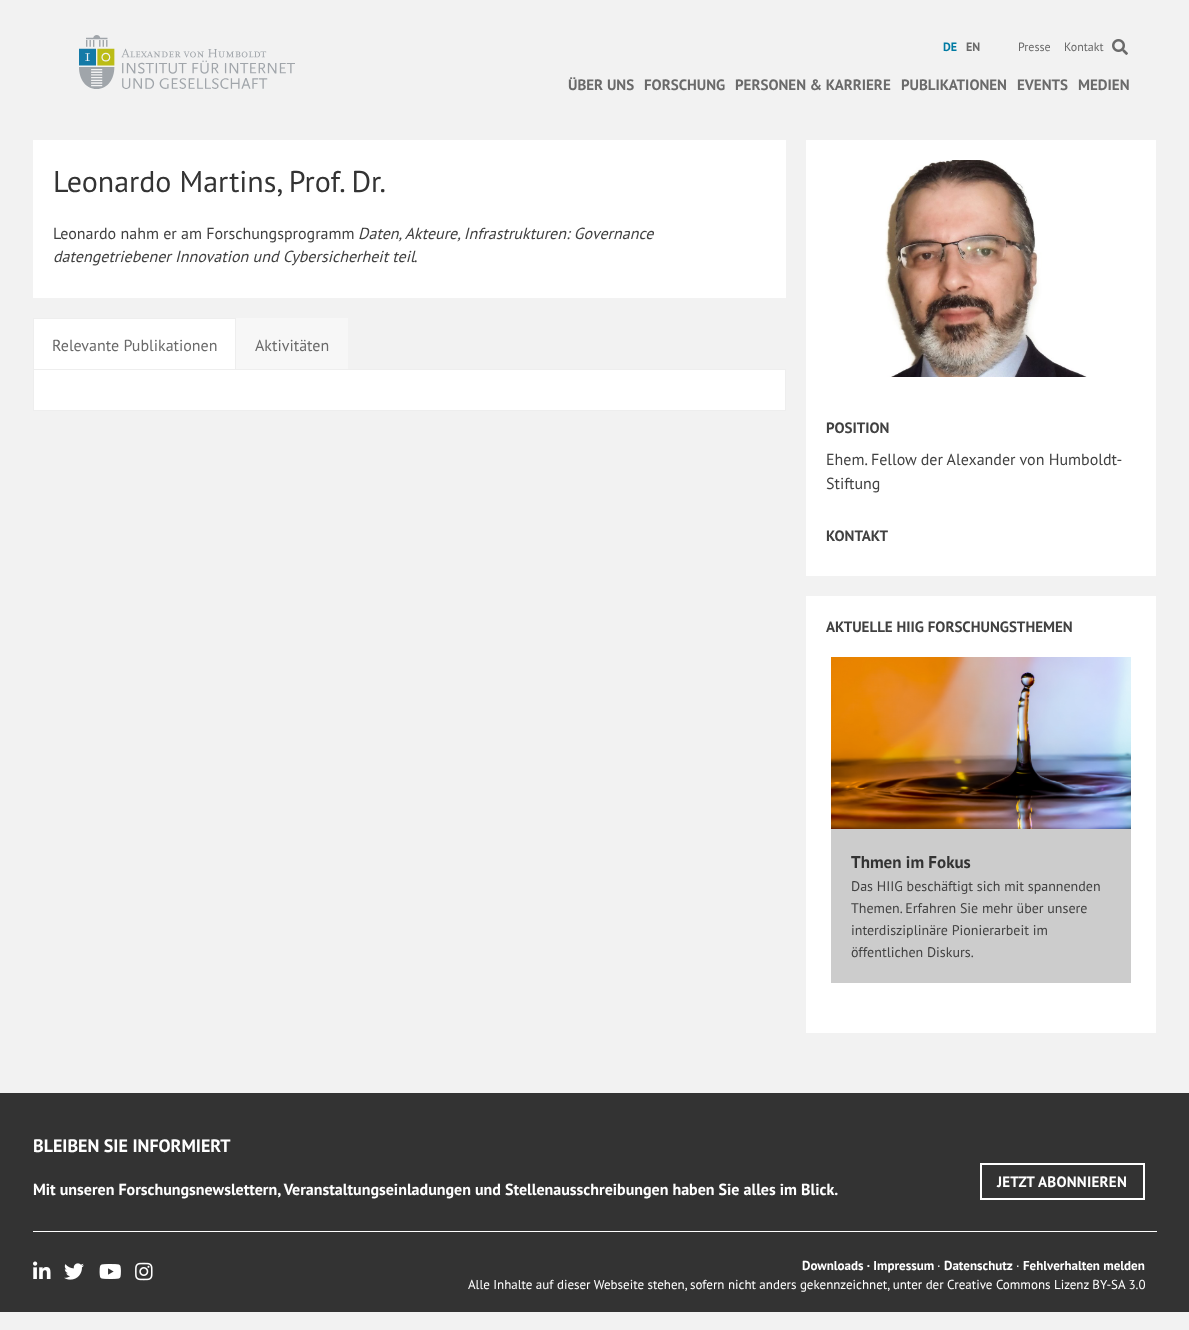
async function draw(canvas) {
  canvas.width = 1189;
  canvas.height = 1330;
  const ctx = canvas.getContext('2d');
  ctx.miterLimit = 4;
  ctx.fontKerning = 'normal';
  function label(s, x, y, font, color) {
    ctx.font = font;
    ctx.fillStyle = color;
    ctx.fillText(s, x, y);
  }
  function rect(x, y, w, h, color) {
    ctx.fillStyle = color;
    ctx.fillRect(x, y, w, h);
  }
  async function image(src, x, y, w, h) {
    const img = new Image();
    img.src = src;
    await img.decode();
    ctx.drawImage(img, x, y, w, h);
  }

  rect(0, 0, 1189, 1330, '#f2f2f2');
  await image('assets/img1.png', 79, 35, 216, 54);
  label('DE', 943, 51, 'bold 12px PT Sans', '#007ba3');
  label('EN', 966, 51, 'bold 12px PT Sans', '#6a6a6a');
  label('Presse', 1018, 51, '12px PT Sans', '#6a6a6a');
  label('Kontakt', 1064, 51, '12px PT Sans', '#6a6a6a');
  await image('assets/img2.png', 1112, 39, 16, 16);
  label('ÜBER UNS', 568, 90, 'bold 15px PT Sans', '#6a6a6a');
  label('FORSCHUNG', 644, 90, 'bold 15px PT Sans', '#6a6a6a');
  label('PERSONEN & KARRIERE', 735, 90, 'bold 15px PT Sans', '#6a6a6a');
  label('PUBLIKATIONEN', 901, 90, 'bold 15px PT Sans', '#6a6a6a');
  label('EVENTS', 1017, 90, 'bold 15px PT Sans', '#6a6a6a');
  label('MEDIEN', 1078, 90, 'bold 15px PT Sans', '#6a6a6a');
  rect(33, 140, 753, 158, '#fff');
  label('Leonardo Martins, Prof. Dr.', 53, 192, '30px PT Sans', '#333');
  label('Leonardo nahm er am Forschungsprogramm', 53, 239, '16px PT Sans', '#414141');
  label('Daten, Akteure, Infrastrukturen: Governance', 358, 239, 'italic 16px PT Sans', '#414141');
  label('datengetriebener Innovation und Cybersicherheit teil', 53, 262, 'italic 16px PT Sans', '#414141');
  label('.', 414, 262, '16px PT Sans', '#414141');
  rect(34, 319, 201, 50, '#fff');
  rect(33, 318, 203, 1, '#eee');
  rect(235, 318, 1, 51, '#eee');
  rect(33, 318, 1, 51, '#eee');
  label('Relevante Publikationen', 52, 351, '16px PT Sans', '#6a6a6a');
  rect(236, 318, 112, 51, '#f7f7f7');
  label('Aktivitäten', 255, 351, '16px PT Sans', '#6a6a6a');
  ctx.strokeStyle = '#eee';
  ctx.strokeRect(33.5, 369.5, 752, 41);
  rect(34, 370, 751, 40, '#fff');
  rect(806, 140, 350, 436, '#fff');
  await image('assets/img3.png', 885, 160, 202, 217);
  label('POSITION', 826, 433, 'bold 15px PT Sans', '#414141');
  label('Ehem. Fellow der Alexander von Humboldt-', 826, 465, '16px PT Sans', '#414141');
  label('Stiftung', 826, 489, '16px PT Sans', '#414141');
  label('KONTAKT', 826, 541, 'bold 15px PT Sans', '#414141');
  rect(806, 596, 350, 437, '#fff');
  label('AKTUELLE HIIG FORSCHUNGSTHEMEN', 826, 632, 'bold 15px PT Sans', '#414141');
  rect(831, 829, 300, 154, '#ccc');
  await image('assets/img4.png', 831, 657, 300, 172);
  label('Thmen im Fokus', 851, 868, 'bold 17px PT Sans', '#333');
  label('Das HIIG beschäftigt sich mit spannenden', 851, 891, '14px PT Sans', '#414141');
  label('Themen. Erfahren Sie mehr über unsere', 851, 913, '14px PT Sans', '#414141');
  label('interdisziplinäre Pionierarbeit im', 851, 935, '14px PT Sans', '#414141');
  label('öffentlichen Diskurs.', 851, 957, '14px PT Sans', '#414141');
  rect(0, 1093, 1189, 219, '#333');
  label('BLEIBEN SIE INFORMIERT', 33, 1152, 'bold 18px PT Sans', '#fff');
  label('Mit unseren Forschungsnewslettern, Veranstaltungseinladungen und Stellenausschreibungen haben Sie alles im Blick.', 33, 1195, 'bold 16px PT Sans', '#fff');
  ctx.strokeStyle = '#fff';
  ctx.lineWidth = 2;
  ctx.strokeRect(981, 1164, 163, 35);
  ctx.letterSpacing = '0.25px';
  label('JETZT ABONNIEREN', 997, 1187, 'bold 15px PT Sans', '#fff');
  rect(33, 1231, 1124, 1, '#fff');
  await image('assets/img5.png', 33, 1261, 18, 18);
  await image('assets/img6.png', 64, 1263, 20, 17);
  await image('assets/img7.png', 99, 1264, 22, 15);
  await image('assets/img8.png', 135, 1262, 18, 19);
  ctx.letterSpacing = '0px';
  label('Downloads · Impressum', 802, 1270, 'bold 13px PT Sans', '#fff');
  label('·', 937, 1270, '13px PT Sans', '#fff');
  label('Datenschutz', 944, 1270, 'bold 13px PT Sans', '#fff');
  label('·', 1016, 1270, '13px PT Sans', '#fff');
  label('Fehlverhalten melden', 1023, 1270, 'bold 13px PT Sans', '#fff');
  label('Alle Inhalte auf dieser Webseite stehen, sofern nicht anders gekennzeichnet, unter der Creative Commons Lizenz BY-SA 3.0', 468, 1289, '13px PT Sans', '#fff');
}

draw(document.querySelector('canvas'));
